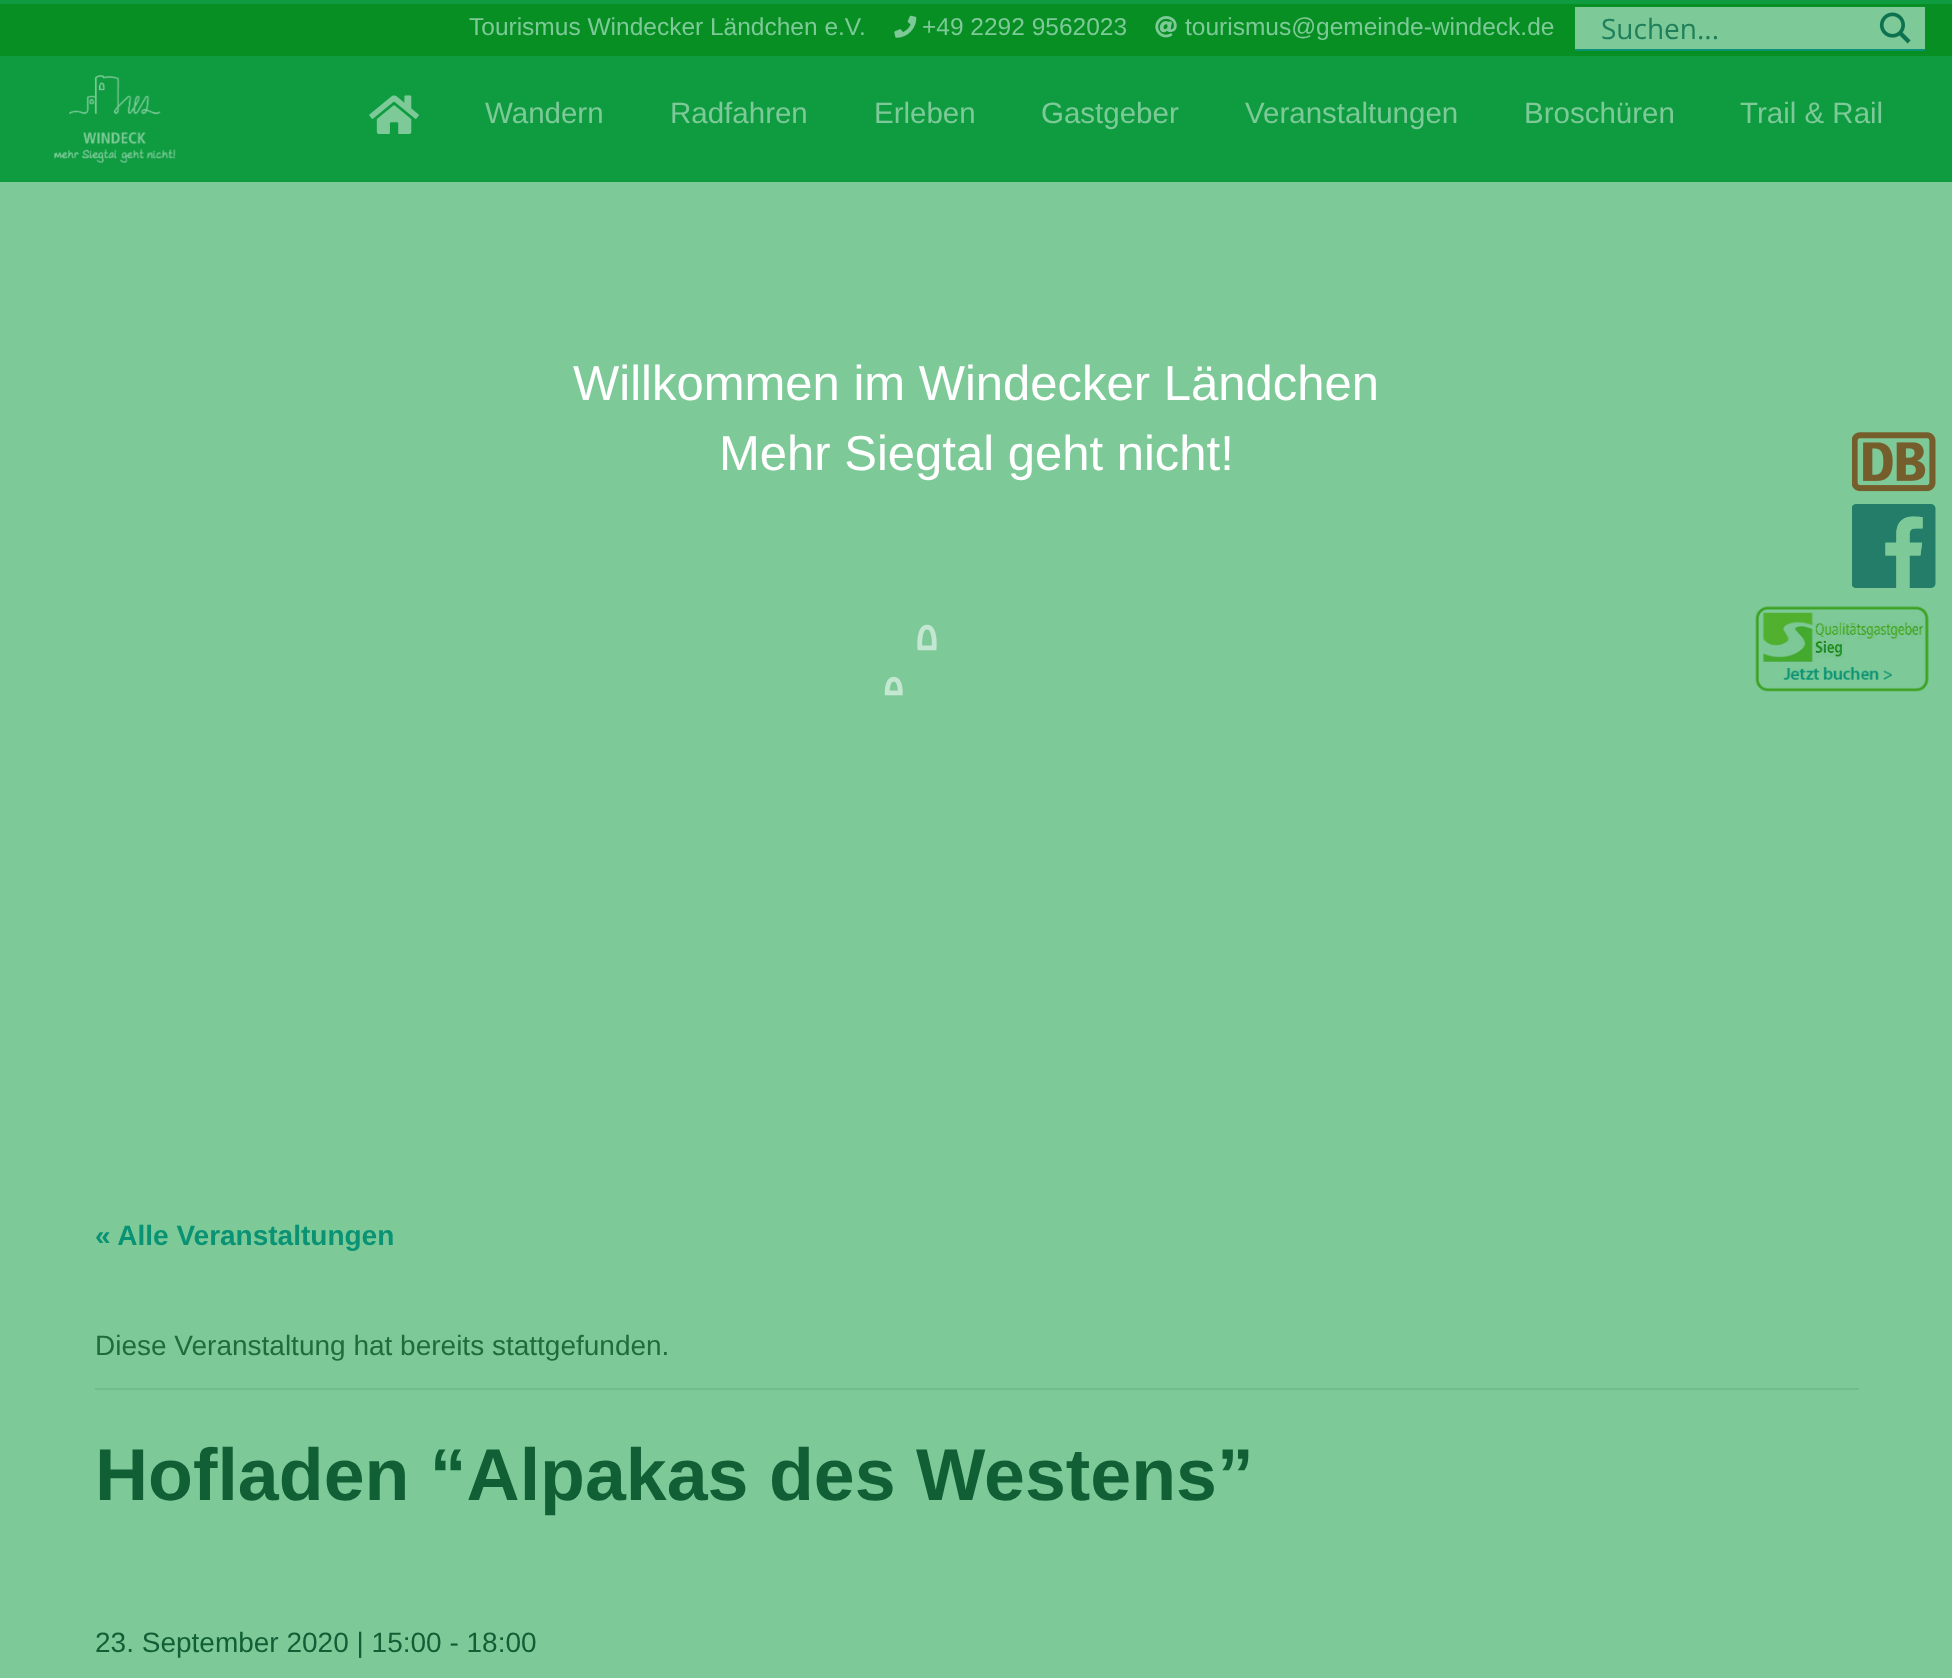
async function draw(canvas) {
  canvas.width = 1952;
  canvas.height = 1678;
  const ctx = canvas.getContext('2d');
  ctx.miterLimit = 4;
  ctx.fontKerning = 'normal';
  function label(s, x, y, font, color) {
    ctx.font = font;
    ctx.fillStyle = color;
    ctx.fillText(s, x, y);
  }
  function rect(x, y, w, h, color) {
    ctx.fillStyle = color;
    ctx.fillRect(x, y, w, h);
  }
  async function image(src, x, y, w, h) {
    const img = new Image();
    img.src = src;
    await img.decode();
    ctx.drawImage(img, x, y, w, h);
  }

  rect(0, 0, 1952, 1678, '#7dca98');
  rect(0, 0, 1952, 4, '#0f9c40');
  rect(0, 4, 1952, 52, '#088f23');
  label('Tourismus Windecker Ländchen e.V.', 469, 35, '24.5px Liberation Sans', '#7dca98');
  await image('assets/img1.png', 894, 15, 23, 23);
  label('+49 2292 9562023', 922, 35, '24.5px Liberation Sans', '#7dca98');
  await image('assets/img2.png', 1155, 16, 22, 22);
  label('tourismus@gemeinde-windeck.de', 1185, 35, '24.5px Liberation Sans', '#7dca98');
  rect(1575, 7, 350, 42, '#7dca98');
  rect(1575, 49, 350, 2, '#099274');
  label('Suchen...', 1601, 39, '28px Open Sans', '#1f7f5b');
  await image('assets/img3.png', 1879, 12, 32, 32);
  rect(0, 56, 1952, 126, '#0f9c40');
  await image('assets/img4.png', 54, 75, 122, 88);
  await image('assets/img5.png', 369, 95, 50, 39);
  label('Wandern', 485, 123, '29.5px Liberation Sans', '#7dca98');
  label('Radfahren', 670, 123, '29.5px Liberation Sans', '#7dca98');
  label('Erleben', 874, 123, '29.5px Liberation Sans', '#7dca98');
  label('Gastgeber', 1041, 123, '29.5px Liberation Sans', '#7dca98');
  label('Veranstaltungen', 1245, 123, '29.5px Liberation Sans', '#7dca98');
  label('Broschüren', 1524, 123, '29.5px Liberation Sans', '#7dca98');
  label('Trail & Rail', 1740, 123, '29.5px Liberation Sans', '#7dca98');
  label('Willkommen im Windecker Ländchen', 573, 400, '49px Liberation Sans', '#fff');
  label('Mehr Siegtal geht nicht!', 719, 470, '49px Liberation Sans', '#fff');
  await image('assets/img6.png', 884, 624, 53, 72);
  await image('assets/img7.png', 1852, 432, 84, 60);
  await image('assets/img8.png', 1852, 504, 84, 84);
  await image('assets/img9.png', 1755, 606, 174, 86);
  label('« Alle Veranstaltungen', 95, 1245, 'bold 28px Liberation Sans', '#099274');
  rect(95, 1388, 1764, 2, '#71bd8b');
  label('Diese Veranstaltung hat bereits stattgefunden.', 95, 1355, '28px Liberation Sans', '#206c3a');
  label('Hofladen “Alpakas des Westens”', 95, 1500, 'bold 73.5px Liberation Sans', '#115f35');
  label('23. September 2020 | 15:00 - 18:00', 95, 1652, '28px Liberation Sans', '#115f35');
}

draw(document.querySelector('canvas'));
